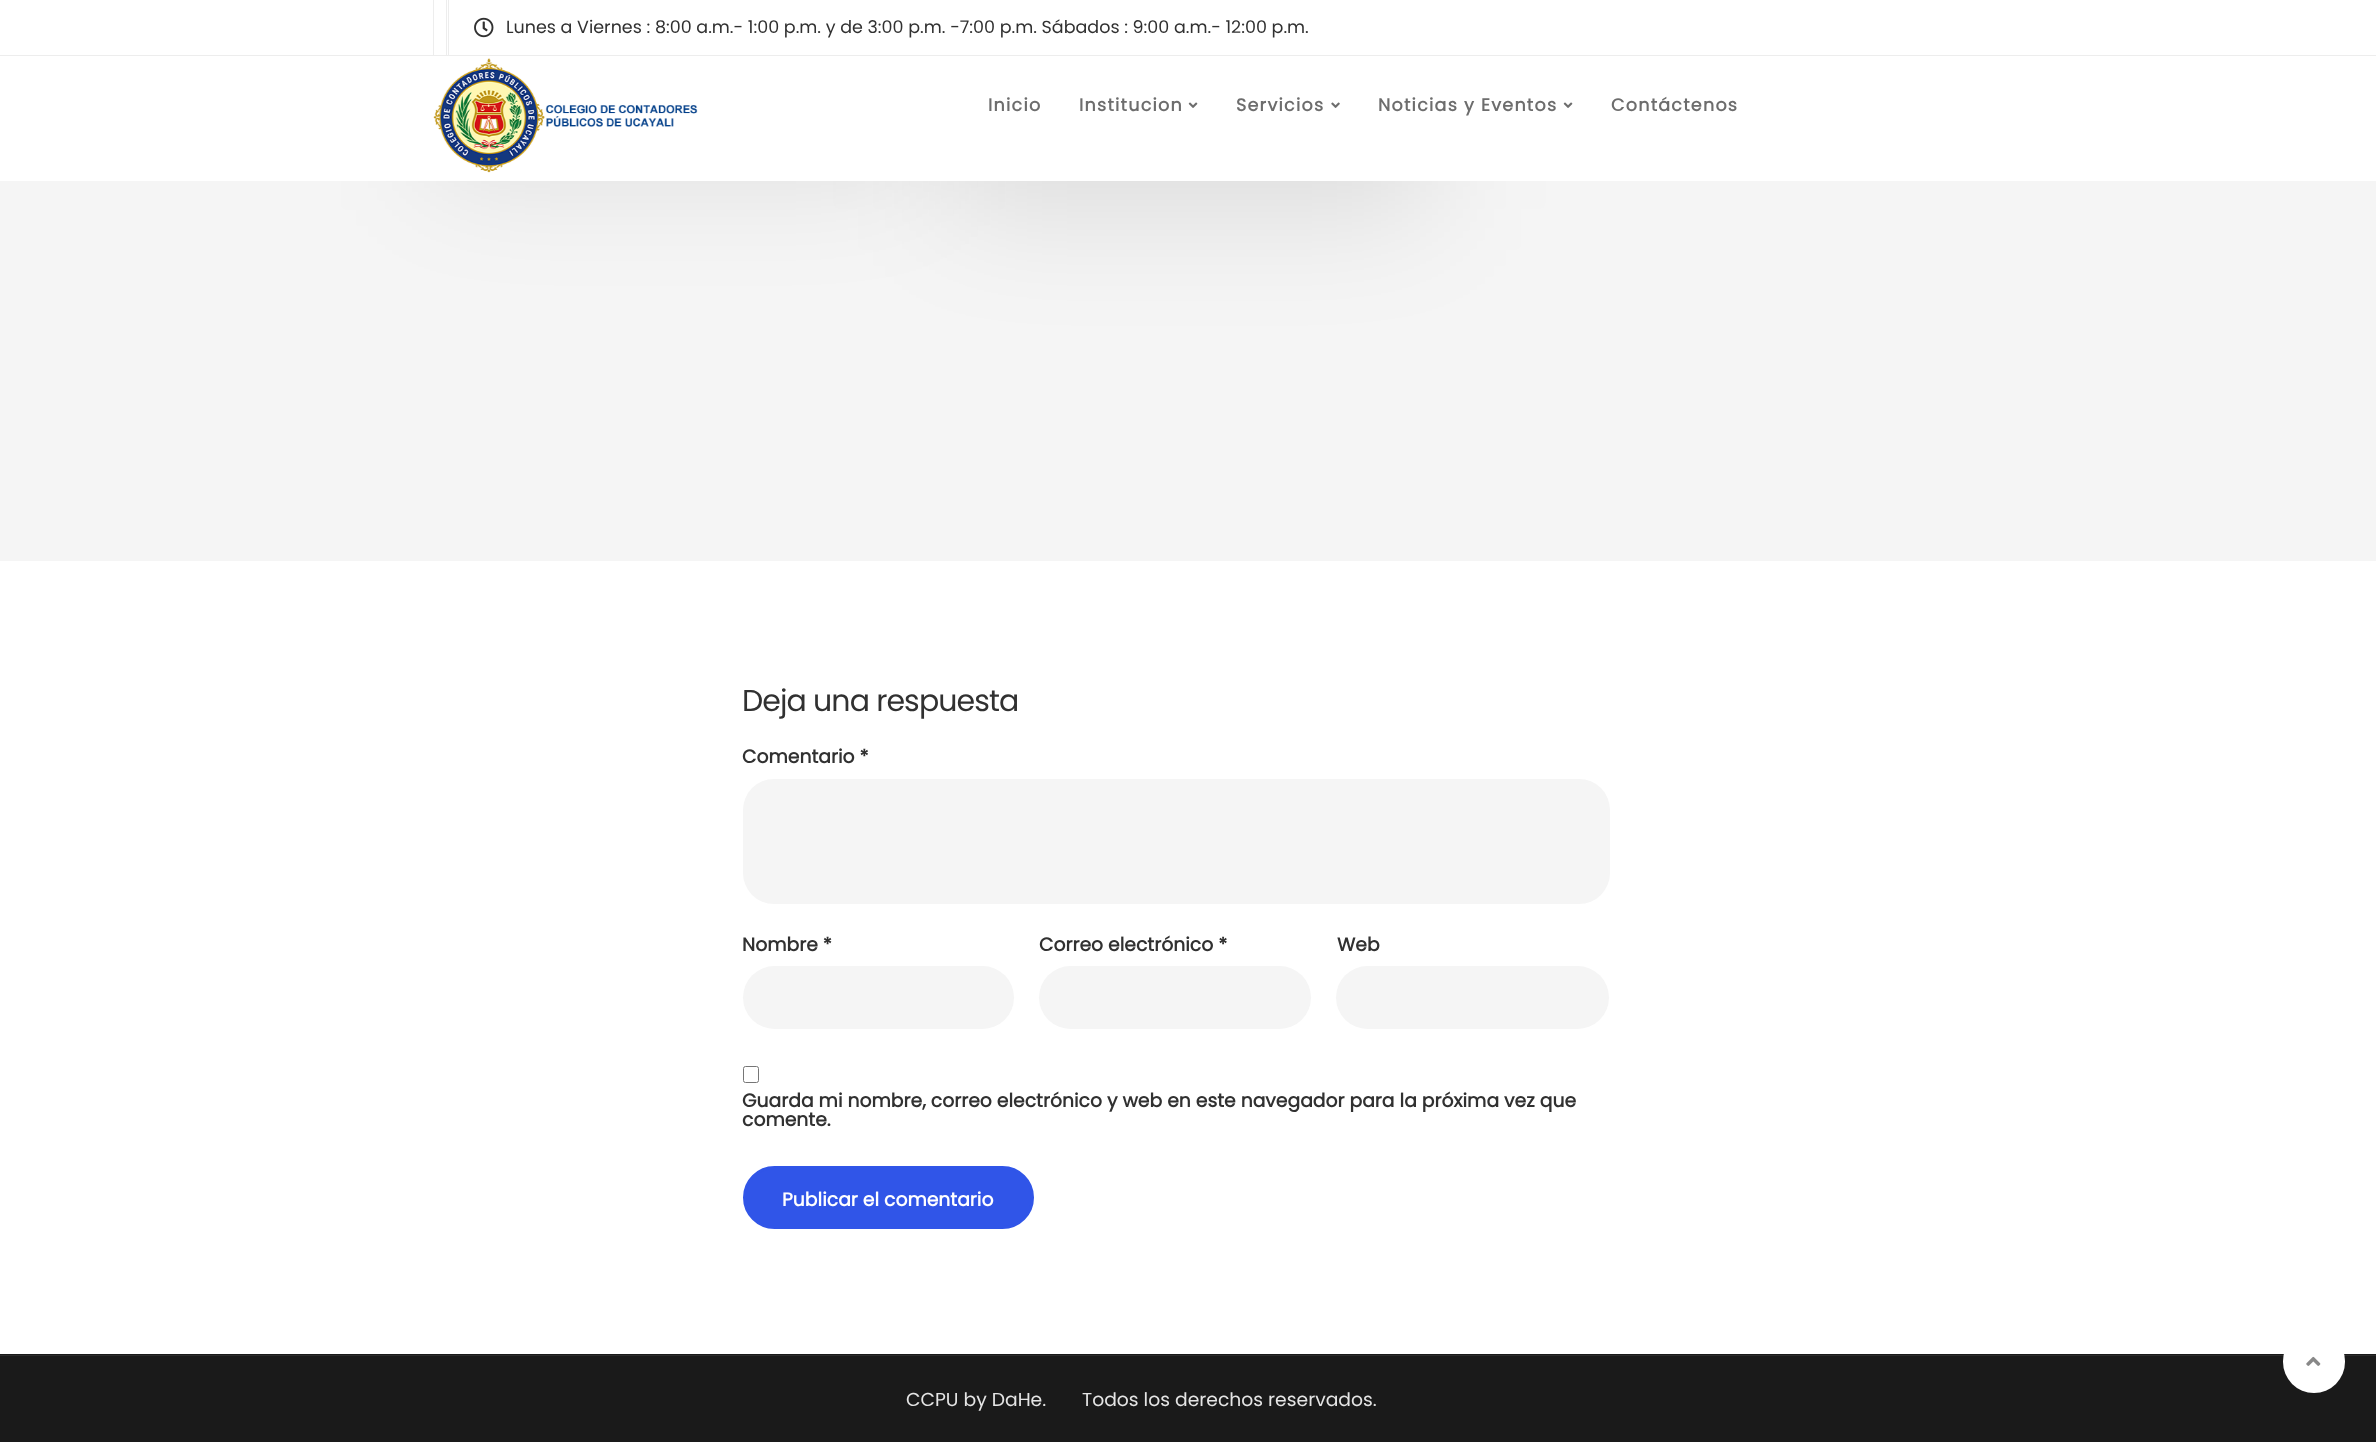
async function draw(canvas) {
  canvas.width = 2376;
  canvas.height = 1442;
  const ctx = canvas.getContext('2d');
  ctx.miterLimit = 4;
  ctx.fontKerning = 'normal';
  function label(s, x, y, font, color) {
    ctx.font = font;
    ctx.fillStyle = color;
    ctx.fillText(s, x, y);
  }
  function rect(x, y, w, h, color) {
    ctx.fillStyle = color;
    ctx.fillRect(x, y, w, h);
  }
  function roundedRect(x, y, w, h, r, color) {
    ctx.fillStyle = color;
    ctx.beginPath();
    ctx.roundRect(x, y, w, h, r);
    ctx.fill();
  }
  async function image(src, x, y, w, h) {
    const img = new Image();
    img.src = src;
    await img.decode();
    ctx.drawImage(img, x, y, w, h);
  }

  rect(0, 0, 2376, 1442, '#1a1a1a');
  rect(0, 181, 2376, 380, '#f5f5f5');
  ctx.fillStyle = '#0000001a';
  ctx.filter = 'blur(61px)';
  ctx.beginPath();
  ctx.roundRect(433, -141, 480, 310, 6);
  ctx.fill();
  ctx.filter = 'none';
  ctx.filter = 'blur(61px)';
  ctx.beginPath();
  ctx.roundRect(950, -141, 479, 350, 6);
  ctx.fill();
  ctx.filter = 'none';
  rect(0, 0, 2376, 181, '#fff');
  rect(0, 55, 2376, 1, '#ededed');
  rect(446, 0, 1, 55, '#ededed');
  rect(433, 0, 1, 55, '#ededed');
  rect(448, 0, 1, 55, '#ededed');
  await image('assets/img1.png', 474, 17, 20, 21);
  label('Lunes a Viernes : 8:00 a.m.- 1:00 p.m. y de 3:00 p.m. -7:00 p.m. Sábados : 9:00 a.m.- 12:00 p.m.', 506, 33, '17.5px Poppins', '#313131');
  await image('assets/img2.png', 433, 58, 265, 115);
  ctx.letterSpacing = '1.25px';
  label('Inicio', 988, 111, 'bold 17.5px Poppins', '#6d6d6d');
  label('Institucion', 1079, 111, 'bold 17.5px Poppins', '#6d6d6d');
  await image('assets/img3.png', 1188, 102, 10, 6);
  label('Servicios', 1236, 111, 'bold 17.5px Poppins', '#6d6d6d');
  await image('assets/img4.png', 1331, 102, 9, 6);
  label('Noticias y Eventos', 1378, 111, 'bold 17.5px Poppins', '#6d6d6d');
  await image('assets/img3.png', 1563, 102, 10, 6);
  label('Contáctenos', 1611, 111, 'bold 17.5px Poppins', '#6d6d6d');
  rect(0, 561, 2376, 793, '#fff');
  ctx.letterSpacing = '-0.9px';
  label('Deja una respuesta', 742, 711, '30px Poppins', '#313131');
  ctx.letterSpacing = '0px';
  label('Comentario *', 742, 763, 'bold 18.75px Poppins', '#313131');
  roundedRect(743, 779, 867, 125, 31, '#f5f5f5');
  label('Nombre *', 742, 951, 'bold 18.75px Poppins', '#313131');
  roundedRect(743, 966, 271, 63, 31.5, '#f5f5f5');
  label('Correo electrónico *', 1039, 951, 'bold 18.75px Poppins', '#313131');
  roundedRect(1039, 966, 272, 63, 31.5, '#f5f5f5');
  label('Web', 1337, 951, 'bold 18.75px Poppins', '#313131');
  roundedRect(1336, 966, 273, 63, 31.5, '#f5f5f5');
  ctx.beginPath();
  ctx.roundRect(743.5, 1066.5, 15, 16, 2);
  ctx.strokeStyle = '#767676';
  ctx.stroke();
  label('Guarda mi nombre, correo electrónico y web en este navegador para la próxima vez que', 742, 1107, 'bold 18.75px Poppins', '#313131');
  label('comente.', 742, 1126, 'bold 18.75px Poppins', '#313131');
  ctx.fillStyle = '#3055e8';
  ctx.beginPath();
  ctx.roundRect(744.5, 1167.5, 288, 60, 30);
  ctx.fill();
  ctx.strokeStyle = '#3055e8';
  ctx.lineWidth = 3;
  ctx.stroke();
  label('Publicar el comentario', 782, 1206, 'bold 18.75px Poppins', '#fff');
  rect(0, 1355, 2376, 1, '#2c2c2c');
  roundedRect(2283, 1330, 62, 63, 31, '#fff');
  await image('assets/img5.png', 2306, 1356, 15, 10);
  label('CCPU by DaHe.', 906, 1406, '18.75px Poppins', '#e5e5e5');
  label('Todos los derechos reservados.', 1082, 1406, '18.75px Poppins', '#e5e5e5');
}

draw(document.querySelector('canvas'));
